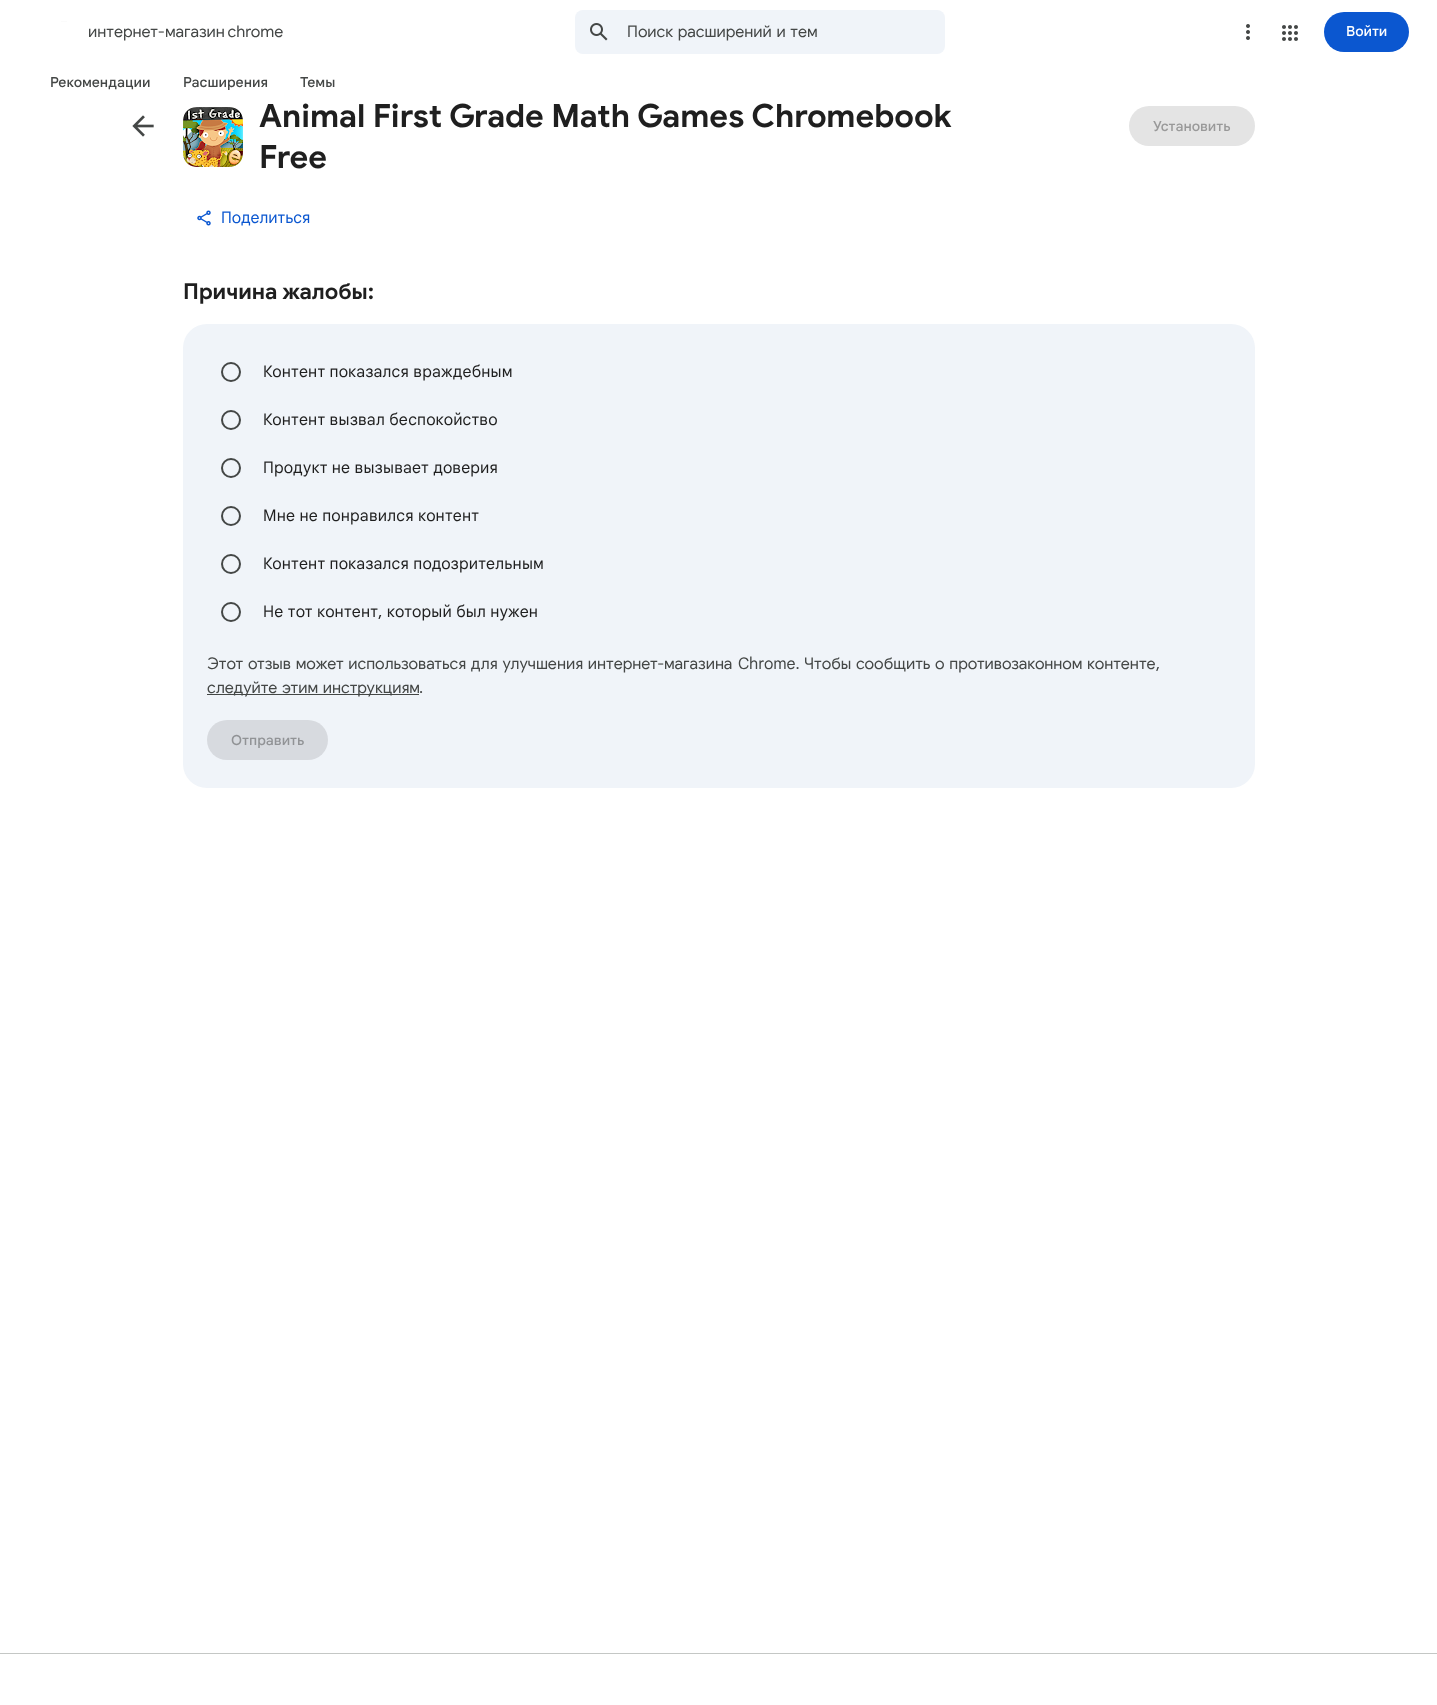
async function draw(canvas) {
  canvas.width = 1437;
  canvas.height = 1705;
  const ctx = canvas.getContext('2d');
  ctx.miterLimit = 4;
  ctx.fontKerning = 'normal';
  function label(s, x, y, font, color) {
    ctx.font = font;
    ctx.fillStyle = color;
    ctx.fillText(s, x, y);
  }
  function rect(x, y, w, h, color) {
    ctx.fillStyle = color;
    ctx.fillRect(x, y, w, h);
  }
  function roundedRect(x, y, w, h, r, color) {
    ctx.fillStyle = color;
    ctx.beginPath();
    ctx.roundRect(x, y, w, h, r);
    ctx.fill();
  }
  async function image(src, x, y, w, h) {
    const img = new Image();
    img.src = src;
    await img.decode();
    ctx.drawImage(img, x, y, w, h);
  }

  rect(0, 0, 1437, 1705, '#fff');
  await image('assets/img1.png', 61, 21, 6, 1);
  ctx.wordSpacing = '-1px';
  label('интернет-магазин chrome', 88, 37, '16px Google Sans', '#444746');
  roundedRect(575, 10, 370, 44, 8, '#f0f4f9');
  await image('assets/img2.png', 590, 23, 18, 18);
  ctx.wordSpacing = '1px';
  label('Поиск расширений и тем', 627, 37, '16px Google Sans', '#444746');
  await image('assets/img3.png', 1246, 24, 4, 16);
  await image('assets/img4.png', 1282, 25, 16, 16);
  roundedRect(1324, 12, 85, 40, 20, '#0b57d0');
  ctx.wordSpacing = '0px';
  label('Войти', 1346, 36, '500 14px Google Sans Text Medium', '#fff');
  label('Рекомендации', 50, 87, '500 14px Google Sans Text Medium', '#444746');
  label('Расширения', 183, 87, '500 14px Google Sans Text Medium', '#444746');
  label('Темы', 300, 87, '500 14px Google Sans Text Medium', '#444746');
  await image('assets/img5.png', 132, 115, 22, 22);
  await image('assets/img6.png', 183, 107, 60, 60);
  label('Animal First Grade Math Games Chromebook', 259, 127, 'bold 32px Google Sans', '#1f1f1f');
  label('Free', 259, 168, 'bold 32px Google Sans', '#1f1f1f');
  roundedRect(1129, 106, 126, 40, 20, '#e4e4e4');
  label('Установить', 1153, 131, '500 14px Google Sans Text Medium', '#999');
  await image('assets/img7.png', 197, 210, 14, 16);
  label('Поделиться', 221, 223, '16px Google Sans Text', '#0b57d0');
  label('Причина жалобы:', 183, 299, 'bold 22px Google Sans', '#1f1f1f');
  roundedRect(183, 324, 1072, 464, 24, '#f0f4f9');
  ctx.beginPath();
  ctx.arc(231, 372, 9, 0, 2 * Math.PI);
  ctx.strokeStyle = '#444746';
  ctx.lineWidth = 2;
  ctx.stroke();
  ctx.letterSpacing = '0.2px';
  label('Контент показался враждебным', 263, 377, '16px Google Sans Text', '#1f1f1f');
  ctx.beginPath();
  ctx.arc(231, 420, 9, 0, 2 * Math.PI);
  ctx.stroke();
  label('Контент вызвал беспокойство', 263, 425, '16px Google Sans Text', '#1f1f1f');
  ctx.beginPath();
  ctx.arc(231, 468, 9, 0, 2 * Math.PI);
  ctx.stroke();
  label('Продукт не вызывает доверия', 263, 473, '16px Google Sans Text', '#1f1f1f');
  ctx.beginPath();
  ctx.arc(231, 516, 9, 0, 2 * Math.PI);
  ctx.stroke();
  label('Мне не понравился контент', 263, 521, '16px Google Sans Text', '#1f1f1f');
  ctx.beginPath();
  ctx.arc(231, 564, 9, 0, 2 * Math.PI);
  ctx.stroke();
  label('Контент показался подозрительным', 263, 569, '16px Google Sans Text', '#1f1f1f');
  ctx.beginPath();
  ctx.arc(231, 612, 9, 0, 2 * Math.PI);
  ctx.stroke();
  label('Не тот контент, который был нужен', 263, 617, '16px Google Sans Text', '#1f1f1f');
  ctx.letterSpacing = '0px';
  ctx.wordSpacing = '1px';
  label('Этот отзыв может использоваться для улучшения интернет', 207, 669, '16px Google Sans', '#444746');
  ctx.wordSpacing = '0px';
  label('-', 657, 669, '16px "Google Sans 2"', '#444746');
  label('магазина', 664, 669, '16px Google Sans', '#444746');
  label('Chrome.', 738, 669, '16px "Google Sans 2"', '#444746');
  ctx.wordSpacing = '1px';
  label('Чтобы сообщить о противозаконном контенте', 804, 669, '16px Google Sans', '#444746');
  ctx.wordSpacing = '0px';
  label(',', 1156, 669, '16px "Google Sans 2"', '#444746');
  rect(207, 694, 212, 1, '#444746');
  ctx.wordSpacing = '1px';
  label('следуйте этим инструкциям', 207, 693, '16px Google Sans', '#444746');
  ctx.wordSpacing = '0px';
  label('.', 419, 693, '16px "Google Sans 2"', '#444746');
  roundedRect(207, 720, 121, 40, 20, '#d7dadf');
  label('Отправить', 231, 745, '500 14px Google Sans Text Medium', '#919396');
  rect(0, 1653, 1437, 1, '#c4c7c5');
}

draw(document.querySelector('canvas'));
